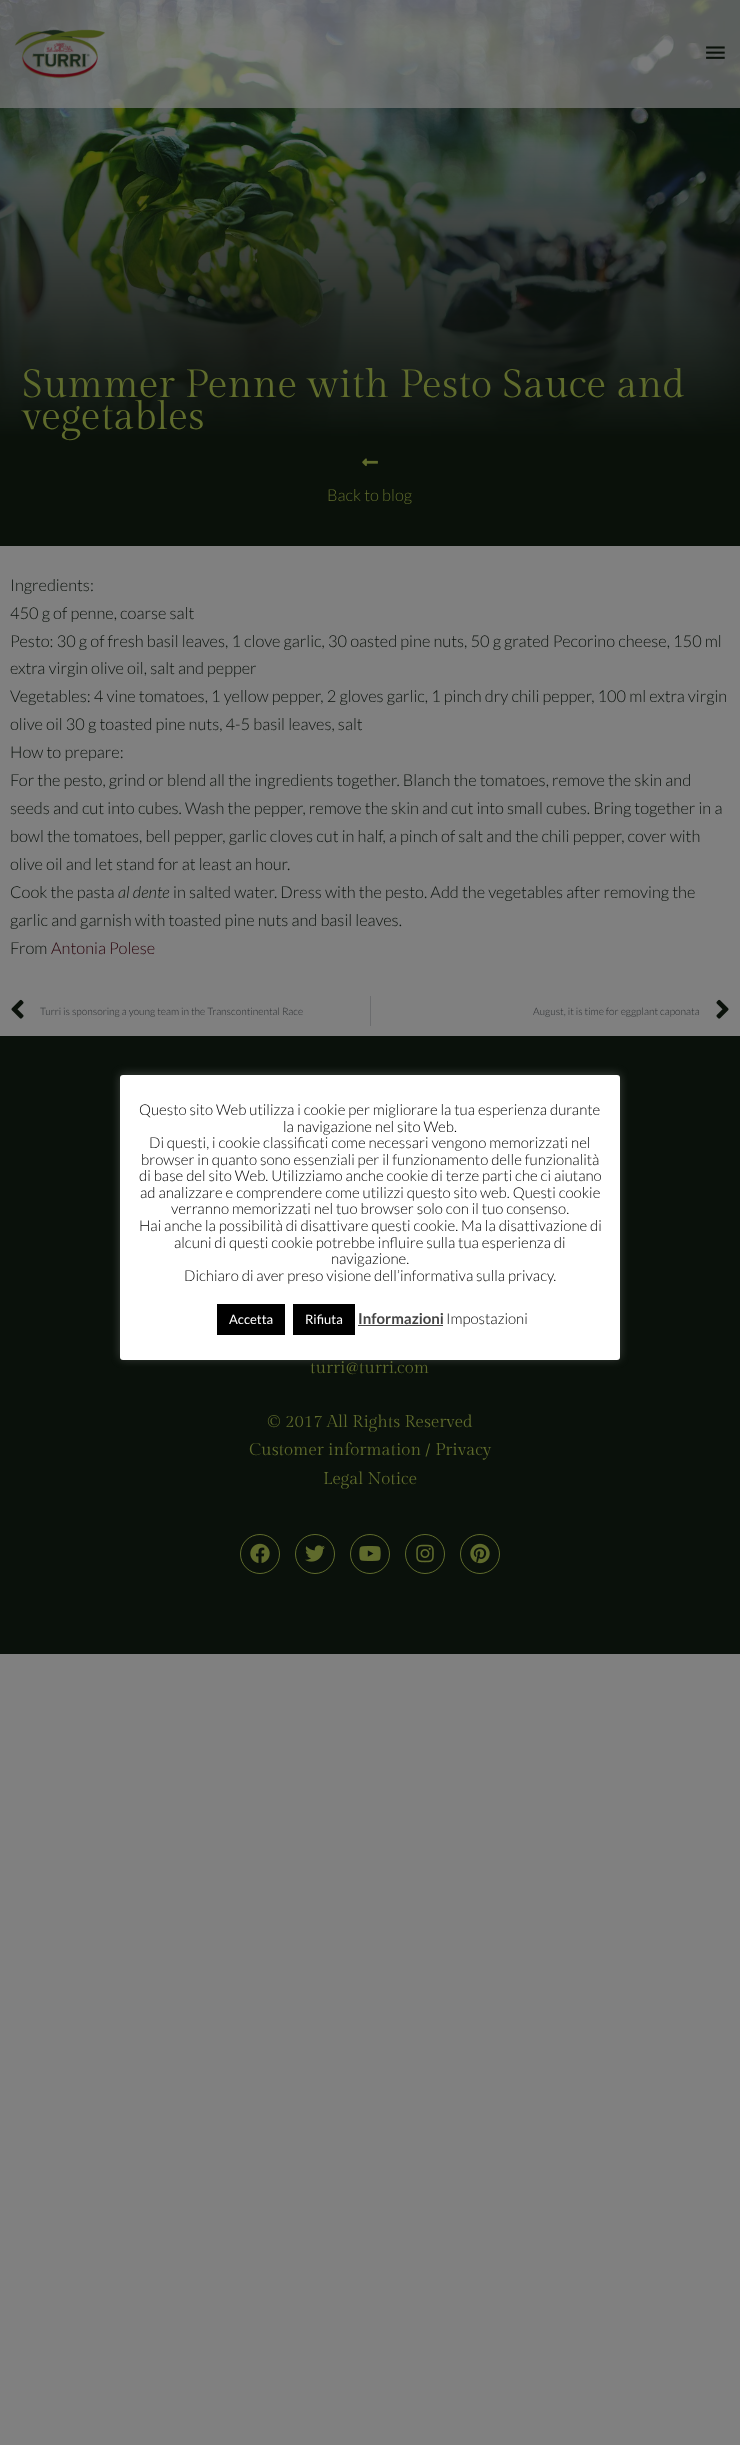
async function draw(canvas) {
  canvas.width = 740;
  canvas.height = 2445;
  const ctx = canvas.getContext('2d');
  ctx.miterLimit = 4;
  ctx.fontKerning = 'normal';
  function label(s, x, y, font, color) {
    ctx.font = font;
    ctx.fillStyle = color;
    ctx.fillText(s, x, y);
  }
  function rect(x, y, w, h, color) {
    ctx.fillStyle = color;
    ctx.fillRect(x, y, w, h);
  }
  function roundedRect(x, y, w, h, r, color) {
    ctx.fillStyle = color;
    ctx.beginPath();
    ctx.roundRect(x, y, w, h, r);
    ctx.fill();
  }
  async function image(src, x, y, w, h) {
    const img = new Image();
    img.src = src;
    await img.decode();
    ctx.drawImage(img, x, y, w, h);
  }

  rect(0, 0, 740, 2445, '#808080');
  await image('assets/img3.png', 0, 0, 740, 546);
  rect(0, 0, 740, 108, '#808080b3');
  await image('assets/img1.png', 14, 29, 91, 50);
  await image('assets/img2.png', 706, 46, 19, 13);
  ctx.letterSpacing = '0.2px';
  label('Summer Penne with Pesto Sauce and', 22, 397, '39.4px Gilda Display', '#5f6b2c');
  label('vegetables', 22, 429, '39.4px Gilda Display', '#5f6b2c');
  await image('assets/img4.png', 362, 458, 16, 9);
  ctx.letterSpacing = '0px';
  label('Back to blog', 327, 501, '300 16.4px Lato', '#5f6b2c');
  label('Ingredients:', 10, 591, '300 16.4px Lato', '#0a110b');
  label('450 g of penne, coarse salt', 10, 619, '300 16.4px Lato', '#0a110b');
  label('Pesto: 30 g of fresh basil leaves, 1 clove garlic, 30 oasted pine nuts, 50 g grated Pecorino cheese, 150 ml', 10, 647, '300 16.4px Lato', '#0a110b');
  label('extra virgin olive oil, salt and pepper', 10, 674, '300 16.4px Lato', '#0a110b');
  label('Vegetables: 4 vine tomatoes, 1 yellow pepper, 2 gloves garlic, 1 pinch dry chili pepper, 100 ml extra virgin', 10, 702, '300 16.4px Lato', '#0a110b');
  label('olive oil 30 g toasted pine nuts, 4-5 basil leaves, salt', 10, 730, '300 16.4px Lato', '#0a110b');
  label('How to prepare:', 10, 758, '300 16.4px Lato', '#0a110b');
  label('For the pesto, grind or blend all the ingredients together. Blanch the tomatoes, remove the skin and', 10, 786, '300 16.4px Lato', '#0a110b');
  label('seeds and cut into cubes. Wash the pepper, remove the skin and cut into small cubes. Bring together in a', 10, 814, '300 16.4px Lato', '#0a110b');
  label('bowl the tomatoes, bell pepper, garlic cloves cut in half, a pinch of salt and the chili pepper, cover with', 10, 842, '300 16.4px Lato', '#0a110b');
  label('olive oil and let stand for at least an hour.', 10, 870, '300 16.4px Lato', '#0a110b');
  label('Cook the pasta', 10, 898, '300 16.4px Lato', '#0a110b');
  label('al dente', 118, 898, 'italic 300 16.4px Lato', '#0a110b');
  label('in salted water. Dress with the pesto. Add the vegetables after removing the', 173, 898, '300 16.4px Lato', '#0a110b');
  label('garlic and garnish with toasted pine nuts and basil leaves.', 10, 926, '300 16.4px Lato', '#0a110b');
  label('From', 10, 954, '300 16.4px Lato', '#0a110b');
  label('Antonia Polese', 51, 954, '300 16.4px Lato', '#2a000a');
  await image('assets/img5.png', 11, 999, 13, 20);
  label('Turri is sponsoring a young team in the Transcontinental Race', 40, 1015, '300 10.2px Lato', '#2a2d30');
  rect(370, 996, 1, 30, '#6b6c6e');
  label('August, it is time for eggplant caponata', 533, 1015, '300 10.2px Lato', '#2a2d30');
  await image('assets/img6.png', 716, 999, 13, 20);
  rect(0, 1036, 740, 618, '#0a110b');
  label('turri@turri.com', 310, 1373, '17px Gilda Display', '#5f6b2c');
  label('© 2017 All Rights Reserved', 267, 1427, '17px Gilda Display', '#5f6b2c');
  label('Customer information / Privacy', 249, 1455, '17px Gilda Display', '#5f6b2c');
  label('Legal Notice', 323, 1484, '17px Gilda Display', '#5f6b2c');
  ctx.beginPath();
  ctx.arc(260, 1554, 19.5, 0, 2 * Math.PI);
  ctx.strokeStyle = '#5f6b2c';
  ctx.stroke();
  await image('assets/img7.png', 250, 1543, 20, 20);
  ctx.beginPath();
  ctx.arc(315, 1554, 19.5, 0, 2 * Math.PI);
  ctx.stroke();
  await image('assets/img8.png', 305, 1545, 20, 17);
  ctx.beginPath();
  ctx.arc(370, 1554, 19.5, 0, 2 * Math.PI);
  ctx.stroke();
  await image('assets/img9.png', 359, 1546, 22, 15);
  ctx.beginPath();
  ctx.arc(425, 1554, 19.5, 0, 2 * Math.PI);
  ctx.stroke();
  await image('assets/img10.png', 416, 1544, 18, 19);
  ctx.beginPath();
  ctx.arc(480, 1554, 19.5, 0, 2 * Math.PI);
  ctx.stroke();
  await image('assets/img11.png', 470, 1543, 20, 21);
  ctx.fillStyle = '#acabab4d';
  ctx.filter = 'blur(5px)';
  ctx.beginPath();
  ctx.roundRect(120, 1074, 500, 285, 3);
  ctx.fill();
  ctx.filter = 'none';
  roundedRect(120, 1075, 500, 285, 3, '#fff');
  label('Questo sito Web utilizza i cookie per migliorare la tua esperienza durante', 139, 1115, '300 15px Lato', '#000');
  label('la navigazione nel sito Web.', 283, 1132, '300 15px Lato', '#000');
  label('Di questi, i cookie classificati come necessari vengono memorizzati nel', 149, 1148, '300 15px Lato', '#000');
  label('browser in quanto sono essenziali per il funzionamento delle funzionalità', 141, 1165, '300 15px Lato', '#000');
  label('di base del sito Web. Utilizziamo anche cookie di terze parti che ci aiutano', 139, 1181, '300 15px Lato', '#000');
  label('ad analizzare e comprendere come utilizzi questo sito web. Questi cookie', 140, 1198, '300 15px Lato', '#000');
  label('verranno memorizzati nel tuo browser solo con il tuo consenso.', 171, 1214, '300 15px Lato', '#000');
  label('Hai anche la possibilità di disattivare questi cookie. Ma la disattivazione di', 139, 1231, '300 15px Lato', '#000');
  label('alcuni di questi cookie potrebbe influire sulla tua esperienza di', 174, 1248, '300 15px Lato', '#000');
  label('navigazione.', 331, 1264, '300 15px Lato', '#000');
  label('Dichiaro di aver preso visione dell’informativa sulla privacy.', 184, 1281, '300 15px Lato', '#000');
  rect(217, 1304, 68, 31, '#000');
  label('Accetta', 229, 1324, '13px Lato', '#fff');
  rect(293, 1304, 62, 31, '#000');
  label('Rifiuta', 305, 1324, '13px Lato', '#fff');
  label('Informazioni', 358, 1324, 'bold 15px Lato', '#444');
  rect(358, 1325, 85, 1, '#444');
  label('Impostazioni', 446, 1324, '300 15px Lato', '#000');
}

draw(document.querySelector('canvas'));
